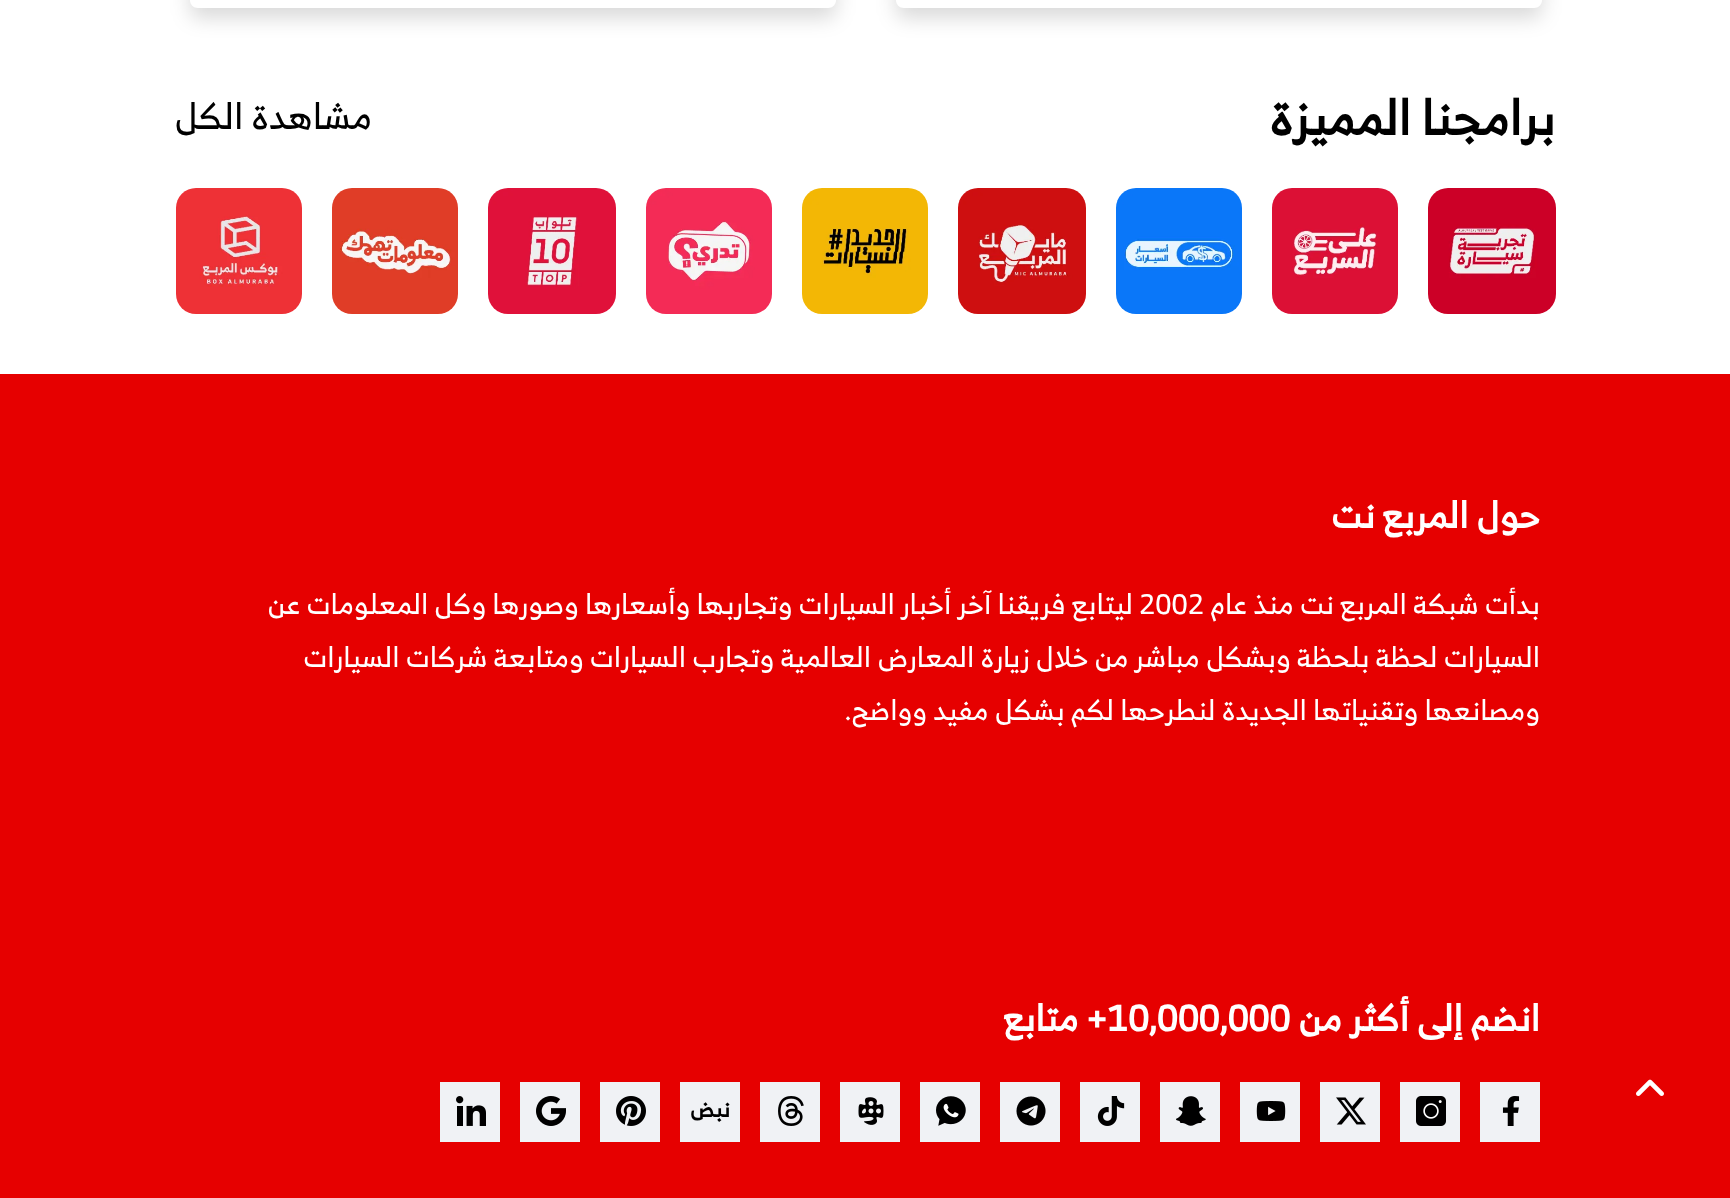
async function draw(canvas) {
  canvas.width = 1730;
  canvas.height = 1198;
  const ctx = canvas.getContext('2d');
  ctx.miterLimit = 4;
  ctx.fontKerning = 'normal';
  function label(s, x, y, font, color) {
    ctx.font = font;
    ctx.fillStyle = color;
    ctx.fillText(s, x, y);
  }
  function rect(x, y, w, h, color) {
    ctx.fillStyle = color;
    ctx.fillRect(x, y, w, h);
  }
  async function image(src, x, y, w, h) {
    const img = new Image();
    img.src = src;
    await img.decode();
    ctx.drawImage(img, x, y, w, h);
  }
  let path;

  rect(0, 0, 1730, 1198, '#fff');
  ctx.save();
  path = new Path2D('M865 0H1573V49H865ZM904-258H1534C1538.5-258 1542-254.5 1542-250V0C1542 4.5 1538.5 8 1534 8H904C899.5 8 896 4.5 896 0V-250C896-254.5 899.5-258 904-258Z');
  ctx.clip(path, 'evenodd');
  ctx.fillStyle = '#00000026';
  ctx.filter = 'blur(10px)';
  ctx.beginPath();
  ctx.roundRect(896, -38, 646, 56, 8);
  ctx.fill();
  ctx.filter = 'none';
  ctx.restore();
  ctx.save();
  path = new Path2D('M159 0H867V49H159ZM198-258H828C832.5-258 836-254.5 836-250V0C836 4.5 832.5 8 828 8H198C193.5 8 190 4.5 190 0V-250C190-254.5 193.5-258 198-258Z');
  ctx.clip(path, 'evenodd');
  ctx.fillStyle = '#00000026';
  ctx.filter = 'blur(10px)';
  ctx.beginPath();
  ctx.roundRect(190, -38, 646, 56, 8);
  ctx.fill();
  ctx.filter = 'none';
  ctx.restore();
  ctx.direction = 'rtl';
  label('برامجنا المميزة', 1555, 135, 'bold 48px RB', '#000');
  label('مشاهدة الكل', 372, 129, '36px RB', '#000');
  await image('assets/img1.png', 1428, 188, 128, 126);
  await image('assets/img2.png', 1272, 188, 126, 126);
  await image('assets/img3.png', 1116, 188, 126, 126);
  await image('assets/img4.png', 958, 188, 128, 126);
  await image('assets/img5.png', 802, 188, 126, 126);
  await image('assets/img6.png', 646, 188, 126, 126);
  await image('assets/img7.png', 488, 188, 128, 126);
  await image('assets/img8.png', 332, 188, 126, 126);
  await image('assets/img9.png', 176, 188, 126, 126);
  rect(0, 374, 1730, 824, '#e60000');
  await image('assets/img10.png', 1636, 1079, 28, 17);
  label('حول المربع نت', 1540, 528, 'bold 36px RB', '#fff');
  label('بدأت شبكة المربع نت منذ عام', 1540, 614, '28px RB', '#fff');
  ctx.direction = 'ltr';
  label('2002', 1139, 614, '28px RB', '#fff');
  ctx.direction = 'rtl';
  label('ليتابع فريقنا آخر أخبار السيارات وتجاربها وأسعارها وصورها وكل المعلومات عن', 1133, 614, '28px RB', '#fff');
  label('السيارات لحظة بلحظة وبشكل مباشر من خلال زيارة المعارض العالمية وتجارب السيارات ومتابعة شركات السيارات', 1540, 667, '28px RB', '#fff');
  label('ومصانعها وتقنياتها الجديدة لنطرحها لكم بشكل مفيد وواضح.', 1540, 720, '28px RB', '#fff');
  label('انضم إلى أكثر من', 1540, 1031, 'bold 36px RB', '#fff');
  ctx.direction = 'ltr';
  label('10,000,000', 1107, 1031, 'bold 36px RB', '#fff');
  ctx.direction = 'rtl';
  label('+ متابع', 1107, 1031, 'bold 36px RB', '#fff');
  rect(1480, 1082, 60, 60, '#f0f2f5');
  await image('assets/img11.png', 1502, 1096, 18, 30);
  rect(1400, 1082, 60, 60, '#f0f2f5');
  await image('assets/img12.png', 1416, 1096, 30, 30);
  rect(1320, 1082, 60, 60, '#f0f2f5');
  await image('assets/img13.png', 1336, 1097, 30, 28);
  rect(1240, 1082, 60, 60, '#f0f2f5');
  await image('assets/img14.png', 1256, 1101, 30, 20);
  rect(1160, 1082, 60, 60, '#f0f2f5');
  await image('assets/img15.png', 1176, 1096, 30, 30);
  rect(1080, 1082, 60, 60, '#f0f2f5');
  await image('assets/img16.png', 1097, 1096, 28, 30);
  rect(1000, 1082, 60, 60, '#f0f2f5');
  await image('assets/img17.png', 1016, 1096, 30, 30);
  rect(920, 1082, 60, 60, '#f0f2f5');
  await image('assets/img18.png', 936, 1096, 30, 30);
  rect(840, 1082, 60, 60, '#f0f2f5');
  await image('assets/img19.png', 858, 1097, 26, 28);
  rect(760, 1082, 60, 60, '#f0f2f5');
  await image('assets/img20.png', 778, 1096, 26, 30);
  rect(680, 1082, 60, 60, '#f0f2f5');
  label('نبض', 730, 1117, 'bold 22px RB', '#000');
  rect(600, 1082, 60, 60, '#f0f2f5');
  await image('assets/img21.png', 616, 1096, 30, 30);
  rect(520, 1082, 60, 60, '#f0f2f5');
  await image('assets/img22.png', 536, 1096, 30, 30);
  rect(440, 1082, 60, 60, '#f0f2f5');
  await image('assets/img23.png', 456, 1096, 30, 30);
}

draw(document.querySelector('canvas'));
